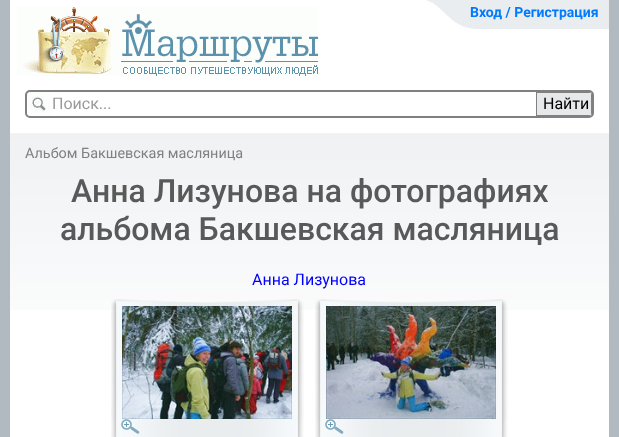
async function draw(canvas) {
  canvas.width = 619;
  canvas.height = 437;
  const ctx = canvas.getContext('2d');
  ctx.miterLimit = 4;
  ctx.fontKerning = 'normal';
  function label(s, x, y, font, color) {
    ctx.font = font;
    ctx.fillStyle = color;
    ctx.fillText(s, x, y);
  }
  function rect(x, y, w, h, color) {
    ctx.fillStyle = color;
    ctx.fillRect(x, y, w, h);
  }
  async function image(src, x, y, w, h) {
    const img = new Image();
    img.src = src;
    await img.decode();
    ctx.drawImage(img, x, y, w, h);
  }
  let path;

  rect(0, 0, 619, 437, '#b1bac1');
  rect(10, 0, 599, 133, '#fff');
  await image('assets/img1.png', 17, 7, 301, 69);
  rect(474, 0, 135, 29, '#eaedef');
  await image('assets/img2.png', 427, 0, 47, 29);
  label('Вход / Регистрация', 470, 17, 'bold 14px Roboto', '#007bff');
  await image('assets/img3.png', 27, 92, 23, 23);
  ctx.beginPath();
  ctx.roundRect(26, 91, 567, 26, 4);
  ctx.strokeStyle = '#808080';
  ctx.lineWidth = 2;
  ctx.stroke();
  label('Поиск...', 52, 109, '16px Roboto', '#999');
  ctx.fillStyle = '#e6e8e9';
  ctx.beginPath();
  ctx.roundRect(536, 92, 56, 24, [0, 3, 3, 0]);
  ctx.fill();
  ctx.fillStyle = '#808080';
  path = new Path2D('M536 92V116H589C591 116 592 115 592 113V95C592 93 591 92 589 92ZM537 93V115H590C591 115 591 115 591 114V94C591 93 591 93 590 93Z');
  ctx.fill(path, 'evenodd');
  label('Найти', 543, 109, '16px Roboto', '#000');
  rect(10, 310, 599, 127, '#fff');
  await image('assets/img4.png', 10, 133, 599, 177);
  label('Альбом Бакшевская масляница', 25, 158, '14.4px Roboto', '#808080');
  label('Анна Лизунова на фотографиях', 71, 202, '500 32px Roboto', '#595959');
  label('альбома Бакшевская масляница', 60, 240, '500 32px Roboto', '#595959');
  label('Анна Лизунова', 252, 285, '16px Roboto', '#00f');
  await image('assets/img5.png', 111, 299, 193, 138);
  await image('assets/img6.png', 122, 306, 170, 113);
  await image('assets/img7.png', 121, 419, 19, 15);
  await image('assets/img8.png', 315, 299, 193, 138);
  await image('assets/img9.png', 326, 306, 170, 113);
  await image('assets/img7.png', 325, 419, 19, 15);
}

draw(document.querySelector('canvas'));
